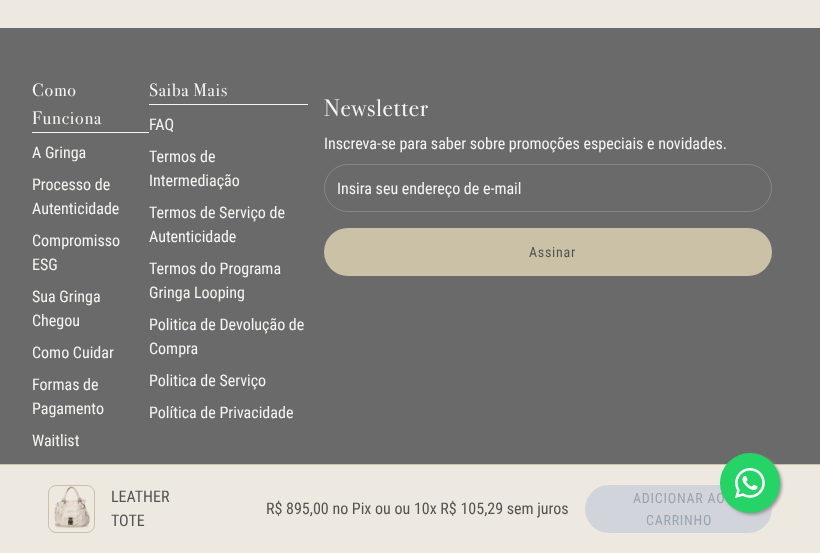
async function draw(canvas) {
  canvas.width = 820;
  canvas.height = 553;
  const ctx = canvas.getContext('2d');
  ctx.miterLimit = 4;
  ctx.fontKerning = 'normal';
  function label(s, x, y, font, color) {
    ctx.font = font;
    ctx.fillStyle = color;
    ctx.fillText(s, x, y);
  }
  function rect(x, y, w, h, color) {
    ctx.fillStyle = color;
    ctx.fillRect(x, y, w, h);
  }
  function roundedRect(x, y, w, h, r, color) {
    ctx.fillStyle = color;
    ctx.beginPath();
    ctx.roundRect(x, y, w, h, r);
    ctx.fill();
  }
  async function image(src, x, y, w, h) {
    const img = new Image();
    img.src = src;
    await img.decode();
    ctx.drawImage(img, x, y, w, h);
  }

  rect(0, 0, 820, 553, '#eee9e0');
  rect(0, 28, 820, 436, '#6a6a6a');
  rect(32, 132, 117, 1, '#f7f5f1');
  ctx.letterSpacing = '0.75px';
  label('Como', 32, 96, '18px "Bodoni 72"', '#f7f5f1');
  label('Funciona', 32, 124, '18px "Bodoni 72"', '#f7f5f1');
  ctx.letterSpacing = '0px';
  label('A Gringa', 32, 158, '16px Roboto Condensed', '#f7f5f1');
  label('Processo de', 32, 190, '16px Roboto Condensed', '#f7f5f1');
  label('Autenticidade', 32, 214, '16px Roboto Condensed', '#f7f5f1');
  label('Compromisso', 32, 246, '16px Roboto Condensed', '#f7f5f1');
  label('ESG', 32, 270, '16px Roboto Condensed', '#f7f5f1');
  label('Sua Gringa', 32, 302, '16px Roboto Condensed', '#f7f5f1');
  label('Chegou', 32, 326, '16px Roboto Condensed', '#f7f5f1');
  label('Como Cuidar', 32, 358, '16px Roboto Condensed', '#f7f5f1');
  label('Formas de', 32, 390, '16px Roboto Condensed', '#f7f5f1');
  label('Pagamento', 32, 414, '16px Roboto Condensed', '#f7f5f1');
  label('Waitlist', 32, 446, '16px Roboto Condensed', '#f7f5f1');
  rect(149, 104, 159, 1, '#f7f5f1');
  ctx.letterSpacing = '0.75px';
  label('Saiba Mais', 149, 96, '18px "Bodoni 72"', '#f7f5f1');
  ctx.letterSpacing = '0px';
  label('FAQ', 149, 130, '16px Roboto Condensed', '#f7f5f1');
  label('Termos de', 149, 162, '16px Roboto Condensed', '#f7f5f1');
  label('Intermediação', 149, 186, '16px Roboto Condensed', '#f7f5f1');
  label('Termos de Serviço de', 149, 218, '16px Roboto Condensed', '#f7f5f1');
  label('Autenticidade', 149, 242, '16px Roboto Condensed', '#f7f5f1');
  label('Termos do Programa', 149, 274, '16px Roboto Condensed', '#f7f5f1');
  label('Gringa Looping', 149, 298, '16px Roboto Condensed', '#f7f5f1');
  label('Politica de Devolução de', 149, 330, '16px Roboto Condensed', '#f7f5f1');
  label('Compra', 149, 354, '16px Roboto Condensed', '#f7f5f1');
  label('Politica de Serviço', 149, 386, '16px Roboto Condensed', '#f7f5f1');
  label('Política de Privacidade', 149, 418, '16px Roboto Condensed', '#f7f5f1');
  ctx.letterSpacing = '0.75px';
  label('Newsletter', 324, 116, '24px "Bodoni 72"', '#f7f5f1');
  ctx.letterSpacing = '0px';
  label('Inscreva-se para saber sobre promoções especiais e novidades.', 324, 149, '16px Roboto Condensed', '#f7f5f1');
  ctx.beginPath();
  ctx.roundRect(324.5, 164.5, 447, 47, 23.5);
  ctx.strokeStyle = '#83878d';
  ctx.stroke();
  label('Insira seu endereço de e-mail', 337, 194, '16px Roboto Condensed', '#f7f5f1');
  roundedRect(324, 228, 448, 48, 24, '#cbc1a7');
  ctx.letterSpacing = '0.75px';
  label('Assinar', 529, 257, '14px Roboto Condensed', '#535353');
  rect(0, 464, 820, 1, '#cbc1a7');
  ctx.beginPath();
  ctx.roundRect(48.5, 485.5, 46, 47, 7.5);
  ctx.strokeStyle = '#cbc1a7';
  ctx.stroke();
  await image('assets/img1.png', 54, 486, 36, 42);
  ctx.letterSpacing = '0px';
  label('LEATHER', 111, 502, '16px Roboto Condensed', '#535353');
  label('TOTE', 111, 526, '16px Roboto Condensed', '#535353');
  label('R$ 895,00 no Pix', 266, 514, '16px Roboto Condensed', '#535353');
  label('ou ou 10x R$ 105,29 sem juros', 375, 514, '16px Roboto Condensed', '#535353');
  roundedRect(585, 485, 187, 48, 24, '#d1d5db');
  ctx.letterSpacing = '0.75px';
  label('ADICIONAR AO', 633, 503, '14px Roboto Condensed', '#9ca3af');
  label('CARRINHO', 646, 525, '14px Roboto Condensed', '#9ca3af');
  ctx.fillStyle = '#999';
  ctx.filter = 'blur(1.5px)';
  ctx.beginPath();
  ctx.roundRect(722, 455, 60, 60, 30);
  ctx.fill();
  ctx.filter = 'none';
  ctx.fillStyle = '#25d366';
  ctx.beginPath();
  ctx.arc(750, 483, 30, 0, 2 * Math.PI);
  ctx.fill();
  await image('assets/img2.png', 735, 468, 30, 30);
}

draw(document.querySelector('canvas'));
